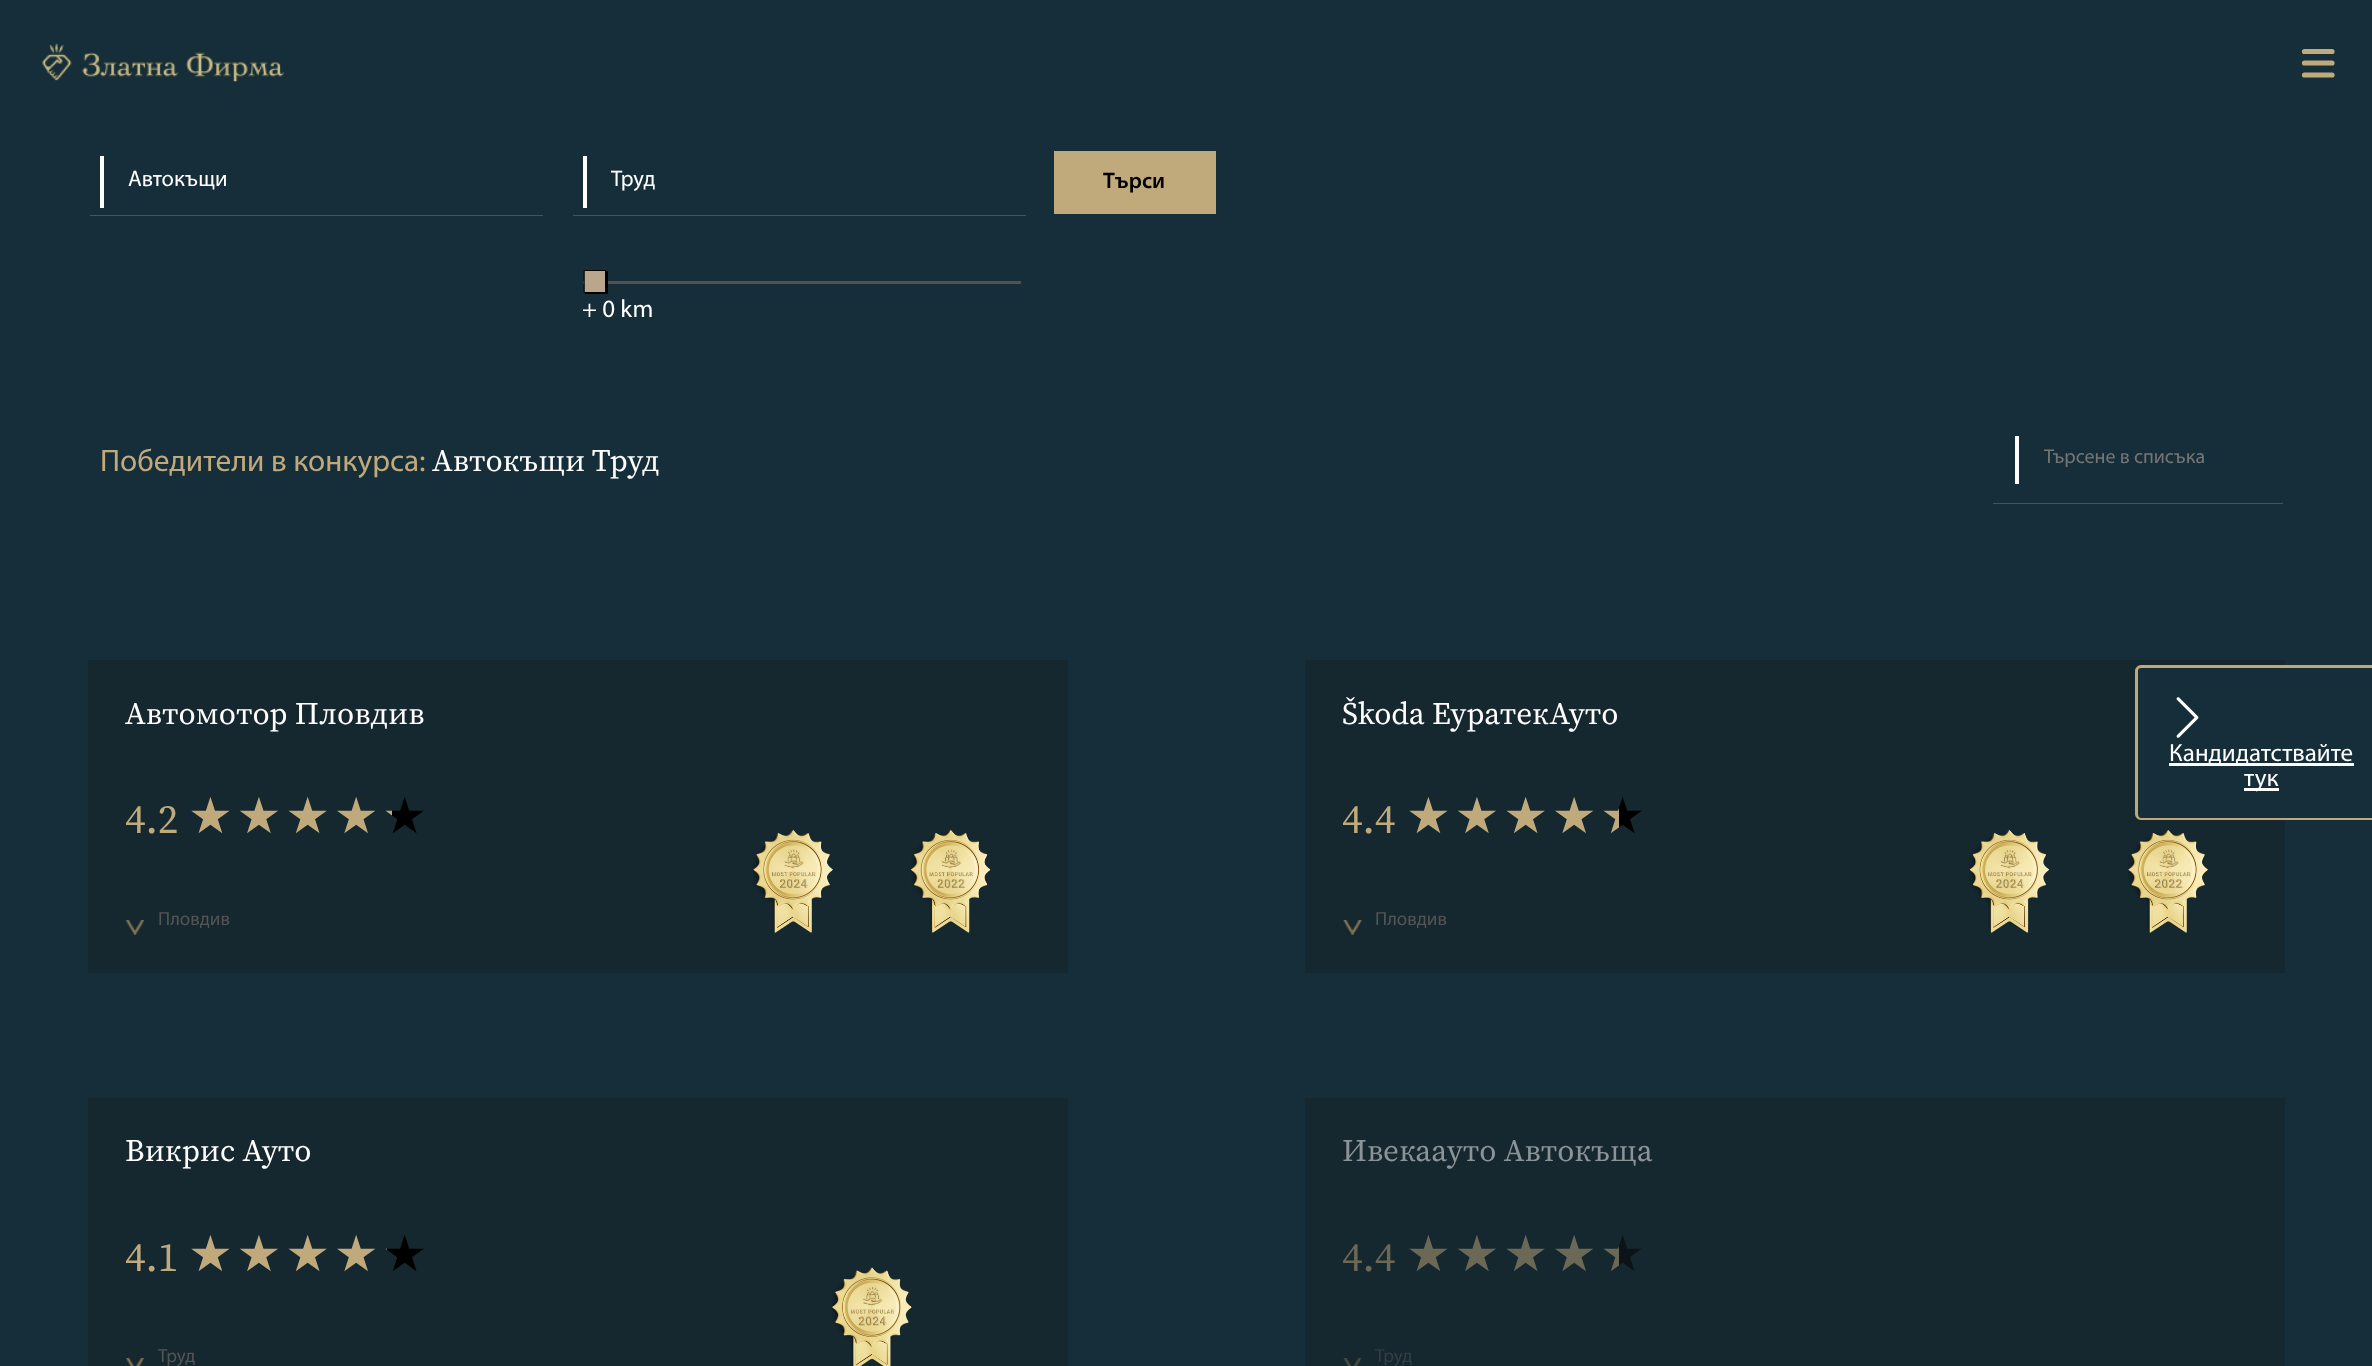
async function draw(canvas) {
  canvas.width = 2372;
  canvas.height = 1366;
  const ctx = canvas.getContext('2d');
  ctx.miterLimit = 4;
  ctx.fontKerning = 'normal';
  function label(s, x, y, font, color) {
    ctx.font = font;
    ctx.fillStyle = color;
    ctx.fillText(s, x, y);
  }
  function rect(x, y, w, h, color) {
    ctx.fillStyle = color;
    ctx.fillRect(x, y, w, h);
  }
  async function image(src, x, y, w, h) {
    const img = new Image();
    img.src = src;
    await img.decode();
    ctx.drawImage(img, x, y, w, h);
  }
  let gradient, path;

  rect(0, 0, 2372, 1366, '#162e39');
  await image('assets/img1.png', 42, 43, 242, 39);
  path = new Path2D('M2304.5 51.5H2332M2304.5 63H2332M2304.5 75H2332');
  ctx.strokeStyle = '#c0aa7b';
  ctx.lineWidth = 5.2;
  ctx.lineCap = 'round';
  ctx.stroke(path);
  rect(90, 215, 453, 1, '#515151');
  rect(100, 156, 4, 52, '#fff');
  label('Автокъщи', 128, 186, '22.5px Myriad', '#fff');
  rect(573, 215, 453, 1, '#515151');
  rect(583, 156, 4, 52, '#fff');
  label('Труд', 611, 186, '22.5px Myriad', '#fff');
  rect(1054, 151, 162, 63, '#c0aa7b');
  label('Tърси', 1103, 188, '600 22.5px Myriad', '#000');
  rect(583, 281, 438, 3, '#515151');
  ctx.fillStyle = '#000';
  ctx.filter = 'blur(0.5px)';
  ctx.beginPath();
  ctx.rect(585, 271, 23, 23);
  ctx.fill();
  ctx.filter = 'none';
  ctx.fillStyle = '#baa78b';
  ctx.beginPath();
  ctx.rect(584.5, 270.5, 21, 22);
  ctx.fill();
  ctx.strokeStyle = '#000';
  ctx.lineWidth = 1;
  ctx.stroke();
  label('+ 0 km', 582, 317, '25px Myriad', '#fff');
  label('Победители в конкурса:', 100, 471, '31.25px Myriad', '#c0aa7b');
  label('Автокъщи Труд', 432, 471, '31.25px Source Serif Pro', '#fff');
  rect(1993, 503, 290, 1, '#515151');
  rect(2015, 436, 4, 48, '#fff');
  label('Търсене в списъка', 2044, 463, '20px Myriad', '#757575');
  rect(88, 660, 980, 313, '#15272f');
  label('Автомотор Пловдив', 125, 724, '31.25px Source Serif Pro', '#fff');
  label('4.2', 125, 833, '41px Source Serif Pro', '#c0aa7b');
  ctx.letterSpacing = '3.75px';
  ctx.font = '50px DejaVu Sans';
  gradient = ctx.createLinearGradient(188, 816, 431, 816);
  gradient.addColorStop(0.84, '#c0aa7b');
  gradient.addColorStop(0.84, '#000');
  ctx.fillStyle = gradient;
  ctx.fillText('★★★★★', 188, 833);
  await image('assets/img2.png', 125, 920, 20, 15);
  ctx.letterSpacing = '0px';
  label('Пловдив', 158, 925, '19px Myriad', '#555');
  await image('assets/img3.png', 753, 830, 80, 103);
  await image('assets/img4.png', 911, 830, 80, 103);
  rect(1305, 660, 980, 313, '#15272f');
  label('Škoda ЕуратекАуто', 1342, 724, '31.25px Source Serif Pro', '#fff');
  label('4.4', 1342, 833, '41px Source Serif Pro', '#c0aa7b');
  ctx.letterSpacing = '3.75px';
  ctx.font = '50px DejaVu Sans';
  gradient = ctx.createLinearGradient(1406, 816, 1648, 816);
  gradient.addColorStop(0.88, '#c0aa7b');
  gradient.addColorStop(0.88, '#000');
  ctx.fillStyle = gradient;
  ctx.fillText('★★★★★', 1406, 833);
  await image('assets/img5.png', 1342, 920, 21, 15);
  ctx.letterSpacing = '0px';
  label('Пловдив', 1375, 925, '19px Myriad', '#555');
  await image('assets/img6.png', 1969, 830, 80, 103);
  await image('assets/img7.png', 2128, 830, 80, 103);
  rect(88, 1098, 980, 268, '#15272f');
  label('Викрис Ауто', 125, 1161, '31.25px Source Serif Pro', '#fff');
  label('4.1', 125, 1271, '41px Source Serif Pro', '#c0aa7b');
  ctx.letterSpacing = '3.75px';
  ctx.font = '50px DejaVu Sans';
  gradient = ctx.createLinearGradient(188, 1254, 431, 1254);
  gradient.addColorStop(0.82, '#c0aa7b');
  gradient.addColorStop(0.82, '#000');
  ctx.fillStyle = gradient;
  ctx.fillText('★★★★★', 188, 1271);
  await image('assets/img8.png', 126, 1358, 18, 8);
  ctx.letterSpacing = '0px';
  label('Труд', 158, 1362, '19px Myriad', '#555');
  await image('assets/img9.png', 832, 1267, 80, 99);
  rect(1305, 1098, 980, 268, '#15272f');
  label('Ивекаауто Автокъща', 1342, 1161, '31.25px Source Serif Pro', '#8a9397');
  label('4.4', 1342, 1271, '41px Source Serif Pro', '#6b6955');
  ctx.letterSpacing = '3.75px';
  ctx.font = '50px DejaVu Sans';
  gradient = ctx.createLinearGradient(1406, 1254, 1648, 1254);
  gradient.addColorStop(0.88, '#6b6955');
  gradient.addColorStop(0.88, '#0b1418');
  ctx.fillStyle = gradient;
  ctx.fillText('★★★★★', 1406, 1271);
  await image('assets/img10.png', 1343, 1358, 19, 8);
  ctx.letterSpacing = '0px';
  label('Труд', 1375, 1362, '19px Myriad', '#353e42');
  ctx.fillStyle = '#162e39';
  path = new Path2D('M2141 665H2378V820H2141C2137.5 820 2135 817.5 2135 814V671C2135 667.5 2137.5 665 2141 665Z');
  ctx.fill(path);
  ctx.fillStyle = '#bfa97a';
  path = new Path2D('M2141 665H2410V820H2141C2138 820 2135 817 2135 814V671C2135 668 2138 665 2141 665ZM2141 668H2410V818H2141C2139 818 2138 816 2138 814V671C2138 669 2139 668 2141 668Z');
  ctx.fill(path, 'evenodd');
  await image('assets/img11.png', 2176, 697, 23, 41);
  rect(2169, 763, 185, 3, '#fff');
  label('Кандидатствайте', 2169, 761, '25px Myriad', '#fff');
  rect(2244, 788, 35, 3, '#fff');
  label('тук', 2244, 786, '25px Myriad', '#fff');
}

draw(document.querySelector('canvas'));
